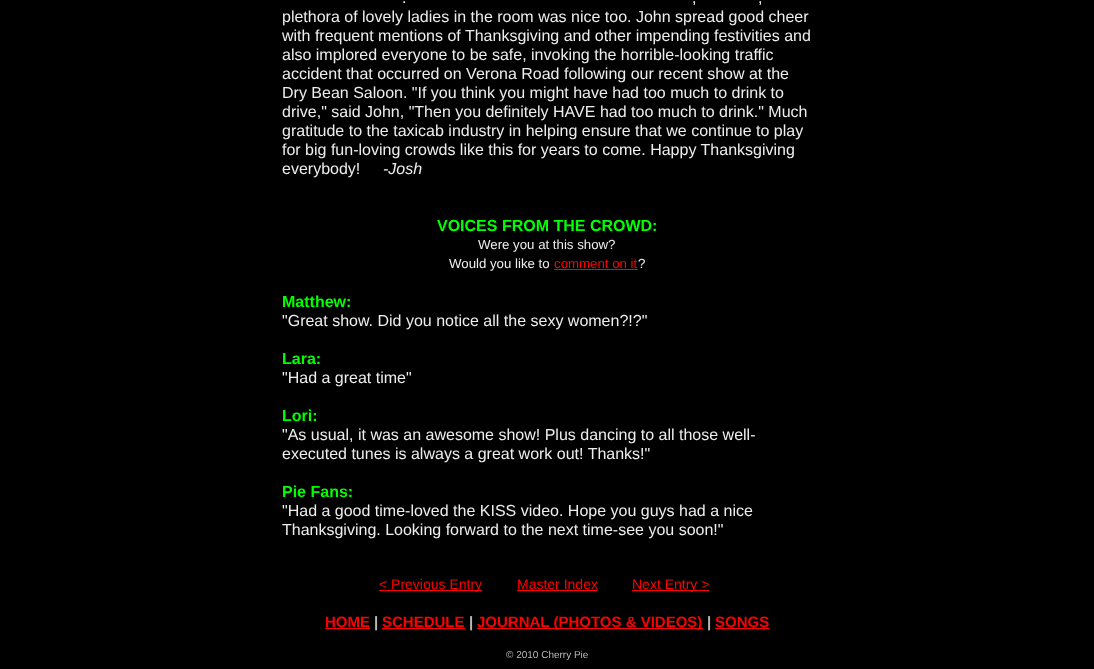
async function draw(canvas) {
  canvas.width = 1094;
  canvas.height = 669;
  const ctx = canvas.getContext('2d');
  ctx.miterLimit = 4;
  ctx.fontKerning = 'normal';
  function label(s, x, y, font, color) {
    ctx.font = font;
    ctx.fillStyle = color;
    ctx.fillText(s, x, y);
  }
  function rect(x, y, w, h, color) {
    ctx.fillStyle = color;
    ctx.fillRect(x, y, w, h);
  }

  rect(0, 0, 1094, 669, '#000');
  label('.', 402, 3, '16px Liberation Sans', '#eeedec');
  label(',', 692, 3, '16px Liberation Sans', '#eeedec');
  label(',', 758, 3, '16px Liberation Sans', '#eeedec');
  label('plethora of lovely ladies in the room was nice too. John spread good cheer', 282, 22, '16px Liberation Sans', '#eeedec');
  label('with frequent mentions of Thanksgiving and other impending festivities and', 282, 41, '16px Liberation Sans', '#eeedec');
  label('also implored everyone to be safe, invoking the horrible-looking traffic', 282, 60, '16px Liberation Sans', '#eeedec');
  label('accident that occurred on Verona Road following our recent show at the', 282, 79, '16px Liberation Sans', '#eeedec');
  label('Dry Bean Saloon. "If you think you might have had too much to drink to', 282, 98, '16px Liberation Sans', '#eeedec');
  label('drive," said John, "Then you definitely HAVE had too much to drink." Much', 282, 117, '16px Liberation Sans', '#eeedec');
  label('gratitude to the taxicab industry in helping ensure that we continue to play', 282, 136, '16px Liberation Sans', '#eeedec');
  label('for big fun-loving crowds like this for years to come. Happy Thanksgiving', 282, 155, '16px Liberation Sans', '#eeedec');
  label('everybody!', 282, 174, '16px Liberation Sans', '#eeedec');
  label('-Josh', 383, 174, 'italic 16px Liberation Sans', '#eeedec');
  label('VOICES FROM THE CROWD:', 437, 231, 'bold 16px Liberation Sans', '#0f0');
  label('Were you at this show?', 478, 249, '13.25px Liberation Sans', '#eeedec');
  label('Would you like to', 449, 268, '13.25px Liberation Sans', '#eeedec');
  label('comment on it', 554, 268, '13.25px Liberation Sans', '#f00');
  rect(554, 269, 84, 1, '#f00');
  label('?', 638, 268, '13.25px Liberation Sans', '#eeedec');
  label('Matthew:', 282, 307, 'bold 16px Liberation Sans', '#0f0');
  label('"Great show. Did you notice all the sexy women?!?"', 282, 326, '16px Liberation Sans', '#eeedec');
  label('Lara:', 282, 364, 'bold 16px Liberation Sans', '#0f0');
  label('"Had a great time"', 282, 383, '16px Liberation Sans', '#eeedec');
  label('Lori:', 282, 421, 'bold 16px Liberation Sans', '#0f0');
  label('"As usual, it was an awesome show! Plus dancing to all those well-', 282, 440, '16px Liberation Sans', '#eeedec');
  label('executed tunes is always a great work out! Thanks!"', 282, 459, '16px Liberation Sans', '#eeedec');
  label('Pie Fans:', 282, 497, 'bold 16px Liberation Sans', '#0f0');
  label('"Had a good time-loved the KISS video. Hope you guys had a nice', 282, 516, '16px Liberation Sans', '#eeedec');
  label('Thanksgiving. Looking forward to the next time-see you soon!"', 282, 535, '16px Liberation Sans', '#eeedec');
  rect(379, 590, 103, 1, '#f00');
  label('< Previous Entry', 379, 589, '14px Liberation Sans', '#f00');
  label('Master Index', 517, 589, '14px Liberation Sans', '#f00');
  rect(517, 590, 80, 1, '#f00');
  rect(632, 590, 77, 1, '#f00');
  label('Next Entry >', 632, 589, '14px Liberation Sans', '#f00');
  label('HOME', 325, 627, 'bold 15px Liberation Sans', '#f00');
  rect(325, 628, 45, 1, '#f00');
  label('|', 374, 627, 'bold 15px Liberation Sans', '#bbbab9');
  label('SCHEDULE', 382, 627, 'bold 15px Liberation Sans', '#f00');
  rect(382, 628, 83, 1, '#f00');
  label('|', 469, 627, 'bold 15px Liberation Sans', '#bbbab9');
  rect(477, 628, 226, 1, '#f00');
  label('JOURNAL (PHOTOS & VIDEOS)', 477, 627, 'bold 15px Liberation Sans', '#f00');
  label('|', 707, 627, 'bold 15px Liberation Sans', '#bbbab9');
  label('SONGS', 715, 627, 'bold 15px Liberation Sans', '#f00');
  rect(715, 628, 54, 1, '#f00');
  label('© 2010 Cherry Pie', 506, 658, '10px Liberation Sans', '#bbbab9');
}

draw(document.querySelector('canvas'));
